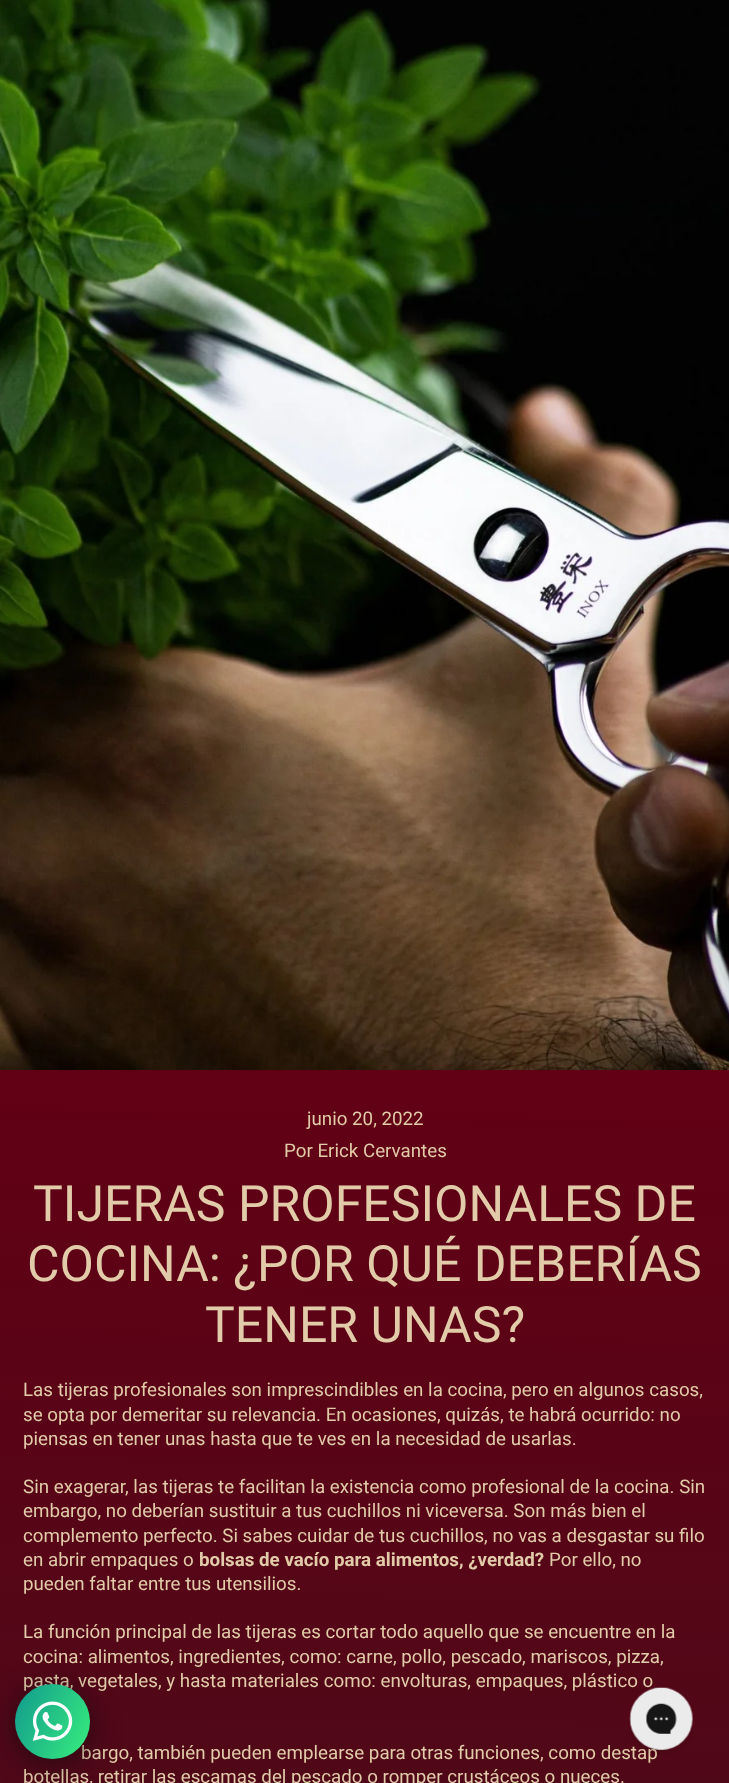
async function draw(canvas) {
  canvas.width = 729;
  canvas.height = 1783;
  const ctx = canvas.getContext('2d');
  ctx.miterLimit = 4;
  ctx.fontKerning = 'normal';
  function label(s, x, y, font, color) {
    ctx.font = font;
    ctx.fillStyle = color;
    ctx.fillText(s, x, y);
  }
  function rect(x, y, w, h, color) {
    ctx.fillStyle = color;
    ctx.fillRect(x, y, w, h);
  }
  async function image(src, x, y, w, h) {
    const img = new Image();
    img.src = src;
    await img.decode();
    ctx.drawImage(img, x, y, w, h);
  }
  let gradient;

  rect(0, 0, 729, 1783, '#fff');
  gradient = ctx.createLinearGradient(387, 1064, 343, 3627);
  gradient.addColorStop(0, '#630015');
  gradient.addColorStop(1, '#1e1e1e');
  ctx.fillStyle = gradient;
  ctx.fillRect(0, 1070, 729, 713);
  await image('assets/img1.png', 0, 0, 729, 1071);
  label('junio 20, 2022', 307, 1125, '18.75px Roboto', '#e1cba8');
  label('Por Erick Cervantes', 284, 1157, '18.75px Roboto', '#e1cba8');
  label('TIJERAS PROFESIONALES DE', 33, 1221, '50px Roboto', '#e1cba8');
  label('COCINA: ¿POR QUÉ DEBERÍAS', 27, 1281, '50px Roboto', '#e1cba8');
  label('TENER UNAS?', 205, 1342, '50px Roboto', '#e1cba8');
  label('Las tijeras profesionales son imprescindibles en la cocina, pero en algunos casos,', 23, 1396, '18.75px Roboto', '#e1cba8');
  label('se opta por demeritar su relevancia. En ocasiones, quizás, te habrá ocurrido: no', 23, 1421, '18.75px Roboto', '#e1cba8');
  label('piensas en tener unas hasta que te ves en la necesidad de usarlas.', 23, 1445, '18.75px Roboto', '#e1cba8');
  label('Sin exagerar, las tijeras te facilitan la existencia como profesional de la cocina. Sin', 23, 1493, '18.75px Roboto', '#e1cba8');
  label('embargo, no deberían sustituir a tus cuchillos ni viceversa. Son más bien el', 23, 1517, '18.75px Roboto', '#e1cba8');
  label('complemento perfecto. Si sabes cuidar de tus cuchillos, no vas a desgastar su filo', 23, 1542, '18.75px Roboto', '#e1cba8');
  label('en abrir empaques o', 23, 1566, '18.75px Roboto', '#e1cba8');
  label('bolsas de vacío para alimentos, ¿verdad?', 199, 1566, 'bold 18.75px Roboto', '#e1cba8');
  label('Por ello, no', 549, 1566, '18.75px Roboto', '#e1cba8');
  label('pueden faltar entre tus utensilios.', 23, 1590, '18.75px Roboto', '#e1cba8');
  label('La función principal de las tijeras es cortar todo aquello que se encuentre en la', 23, 1638, '18.75px Roboto', '#e1cba8');
  label('cocina: alimentos, ingredientes, como: carne, pollo, pescado, mariscos, pizza,', 23, 1663, '18.75px Roboto', '#e1cba8');
  label('pasta, vegetales, y hasta materiales como: envolturas, empaques, plástico o', 23, 1687, '18.75px Roboto', '#e1cba8');
  label('bargo, también pueden emplearse para otras funciones, como destap', 81, 1759, '18.75px Roboto', '#e1cba8');
  label('botellas, retirar las escamas del pescado o romper crustáceos o nueces.', 23, 1783, '18.75px Roboto', '#e1cba8');
  ctx.fillStyle = '#02061080';
  ctx.filter = 'blur(15px)';
  ctx.beginPath();
  ctx.roundRect(15, 1689, 75, 75, 37.5);
  ctx.fill();
  ctx.filter = 'none';
  gradient = ctx.createLinearGradient(7.3, 1700, 98, 1742);
  gradient.addColorStop(0, '#11998e');
  gradient.addColorStop(1, '#38ef7d');
  ctx.fillStyle = gradient;
  ctx.beginPath();
  ctx.arc(52.5, 1721.5, 37.5, 0, 2 * Math.PI);
  ctx.fill();
  await image('assets/img2.png', 32, 1701, 41, 40);
  await image('assets/img3.png', 629, 1687, 64, 68);
}

draw(document.querySelector('canvas'));
